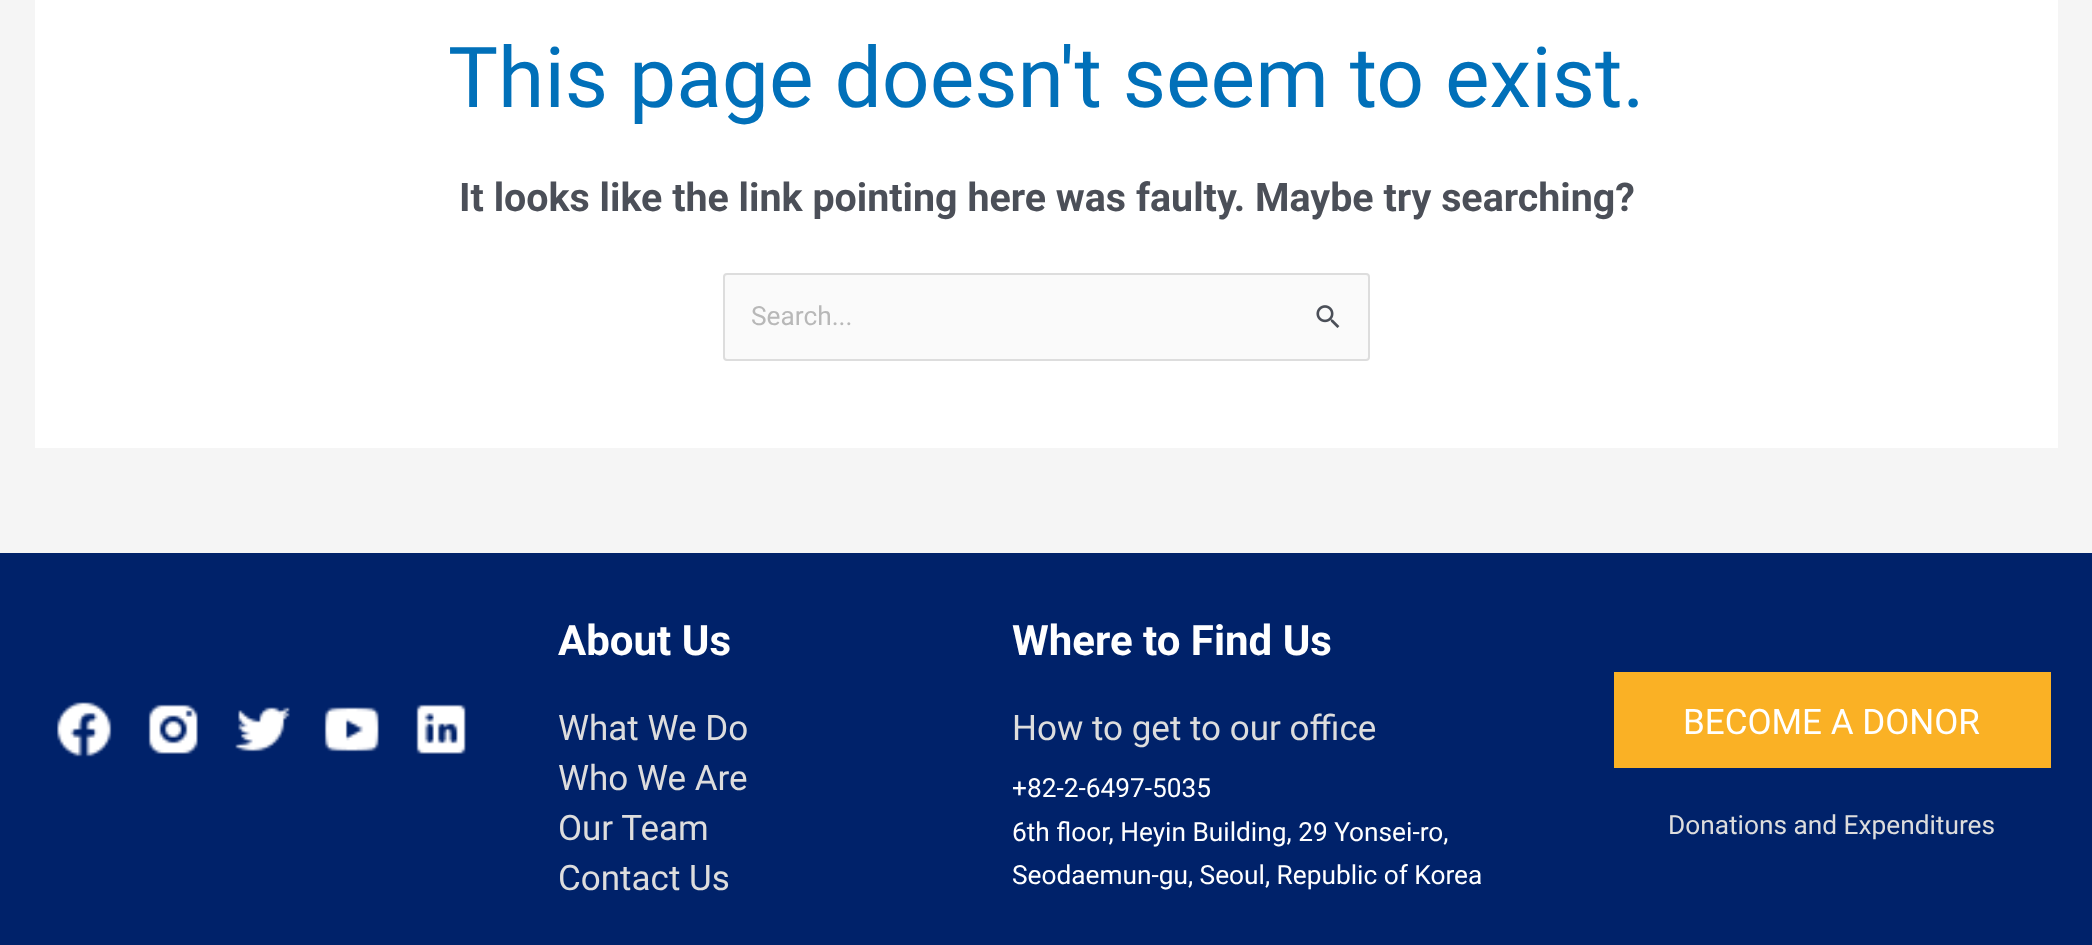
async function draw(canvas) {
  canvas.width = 2092;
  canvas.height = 945;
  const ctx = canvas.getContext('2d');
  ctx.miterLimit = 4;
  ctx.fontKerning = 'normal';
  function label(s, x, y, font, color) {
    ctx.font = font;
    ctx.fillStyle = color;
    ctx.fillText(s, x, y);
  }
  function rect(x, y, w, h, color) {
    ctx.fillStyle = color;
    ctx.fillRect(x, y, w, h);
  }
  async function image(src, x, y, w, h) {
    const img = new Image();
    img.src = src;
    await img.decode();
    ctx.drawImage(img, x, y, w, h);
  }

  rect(0, 0, 2092, 945, '#f5f5f5');
  rect(35, 0, 2023, 448, '#fff');
  label('This page doesn\'t seem to exist.', 448, 107, '84px Roboto', '#0170b9');
  label('It looks like the link pointing here was faulty. Maybe try searching?', 459, 211, 'bold 39.4px Roboto', '#4b4f58');
  ctx.fillStyle = '#fafafa';
  ctx.beginPath();
  ctx.roundRect(724, 274, 645, 86, 3);
  ctx.fill();
  ctx.strokeStyle = '#ddd';
  ctx.lineWidth = 2;
  ctx.stroke();
  label('Search...', 751, 325, '26.25px Roboto', '#b8b8b8');
  await image('assets/img1.png', 1316, 305, 24, 23);
  rect(0, 553, 2092, 392, '#00226a');
  await image('assets/img2.png', 57, 702, 55, 55);
  await image('assets/img3.png', 148, 704, 50, 50);
  await image('assets/img4.png', 235, 707, 55, 45);
  await image('assets/img5.png', 324, 707, 55, 45);
  await image('assets/img6.png', 416, 704, 50, 50);
  label('About Us', 558, 655, 'bold 42px Roboto', '#fff');
  label('What We Do', 558, 740, '35px Roboto', '#ddd');
  label('Who We Are', 558, 790, '35px Roboto', '#ddd');
  label('Our Team', 558, 840, '35px Roboto', '#ddd');
  label('Contact Us', 558, 890, '35px Roboto', '#ddd');
  label('Where to Find Us', 1012, 655, 'bold 42px Roboto', '#fff');
  label('How to get to our office', 1012, 740, '35px Roboto', '#ddd');
  label('+82-2-6497-5035', 1012, 797, '26.25px Roboto', '#fff');
  label('6th floor, Heyin Building, 29 Yonsei-ro,', 1012, 841, '26.25px Roboto', '#fff');
  label('Seodaemun-gu, Seoul, Republic of Korea', 1012, 884, '26.25px Roboto', '#fff');
  rect(1614, 672, 437, 96, '#fab125');
  label('BECOME A DONOR', 1683, 734, '35px Roboto', '#fff');
  label('Donations and Expenditures', 1668, 834, '26.25px Roboto', '#ddd');
}

draw(document.querySelector('canvas'));
